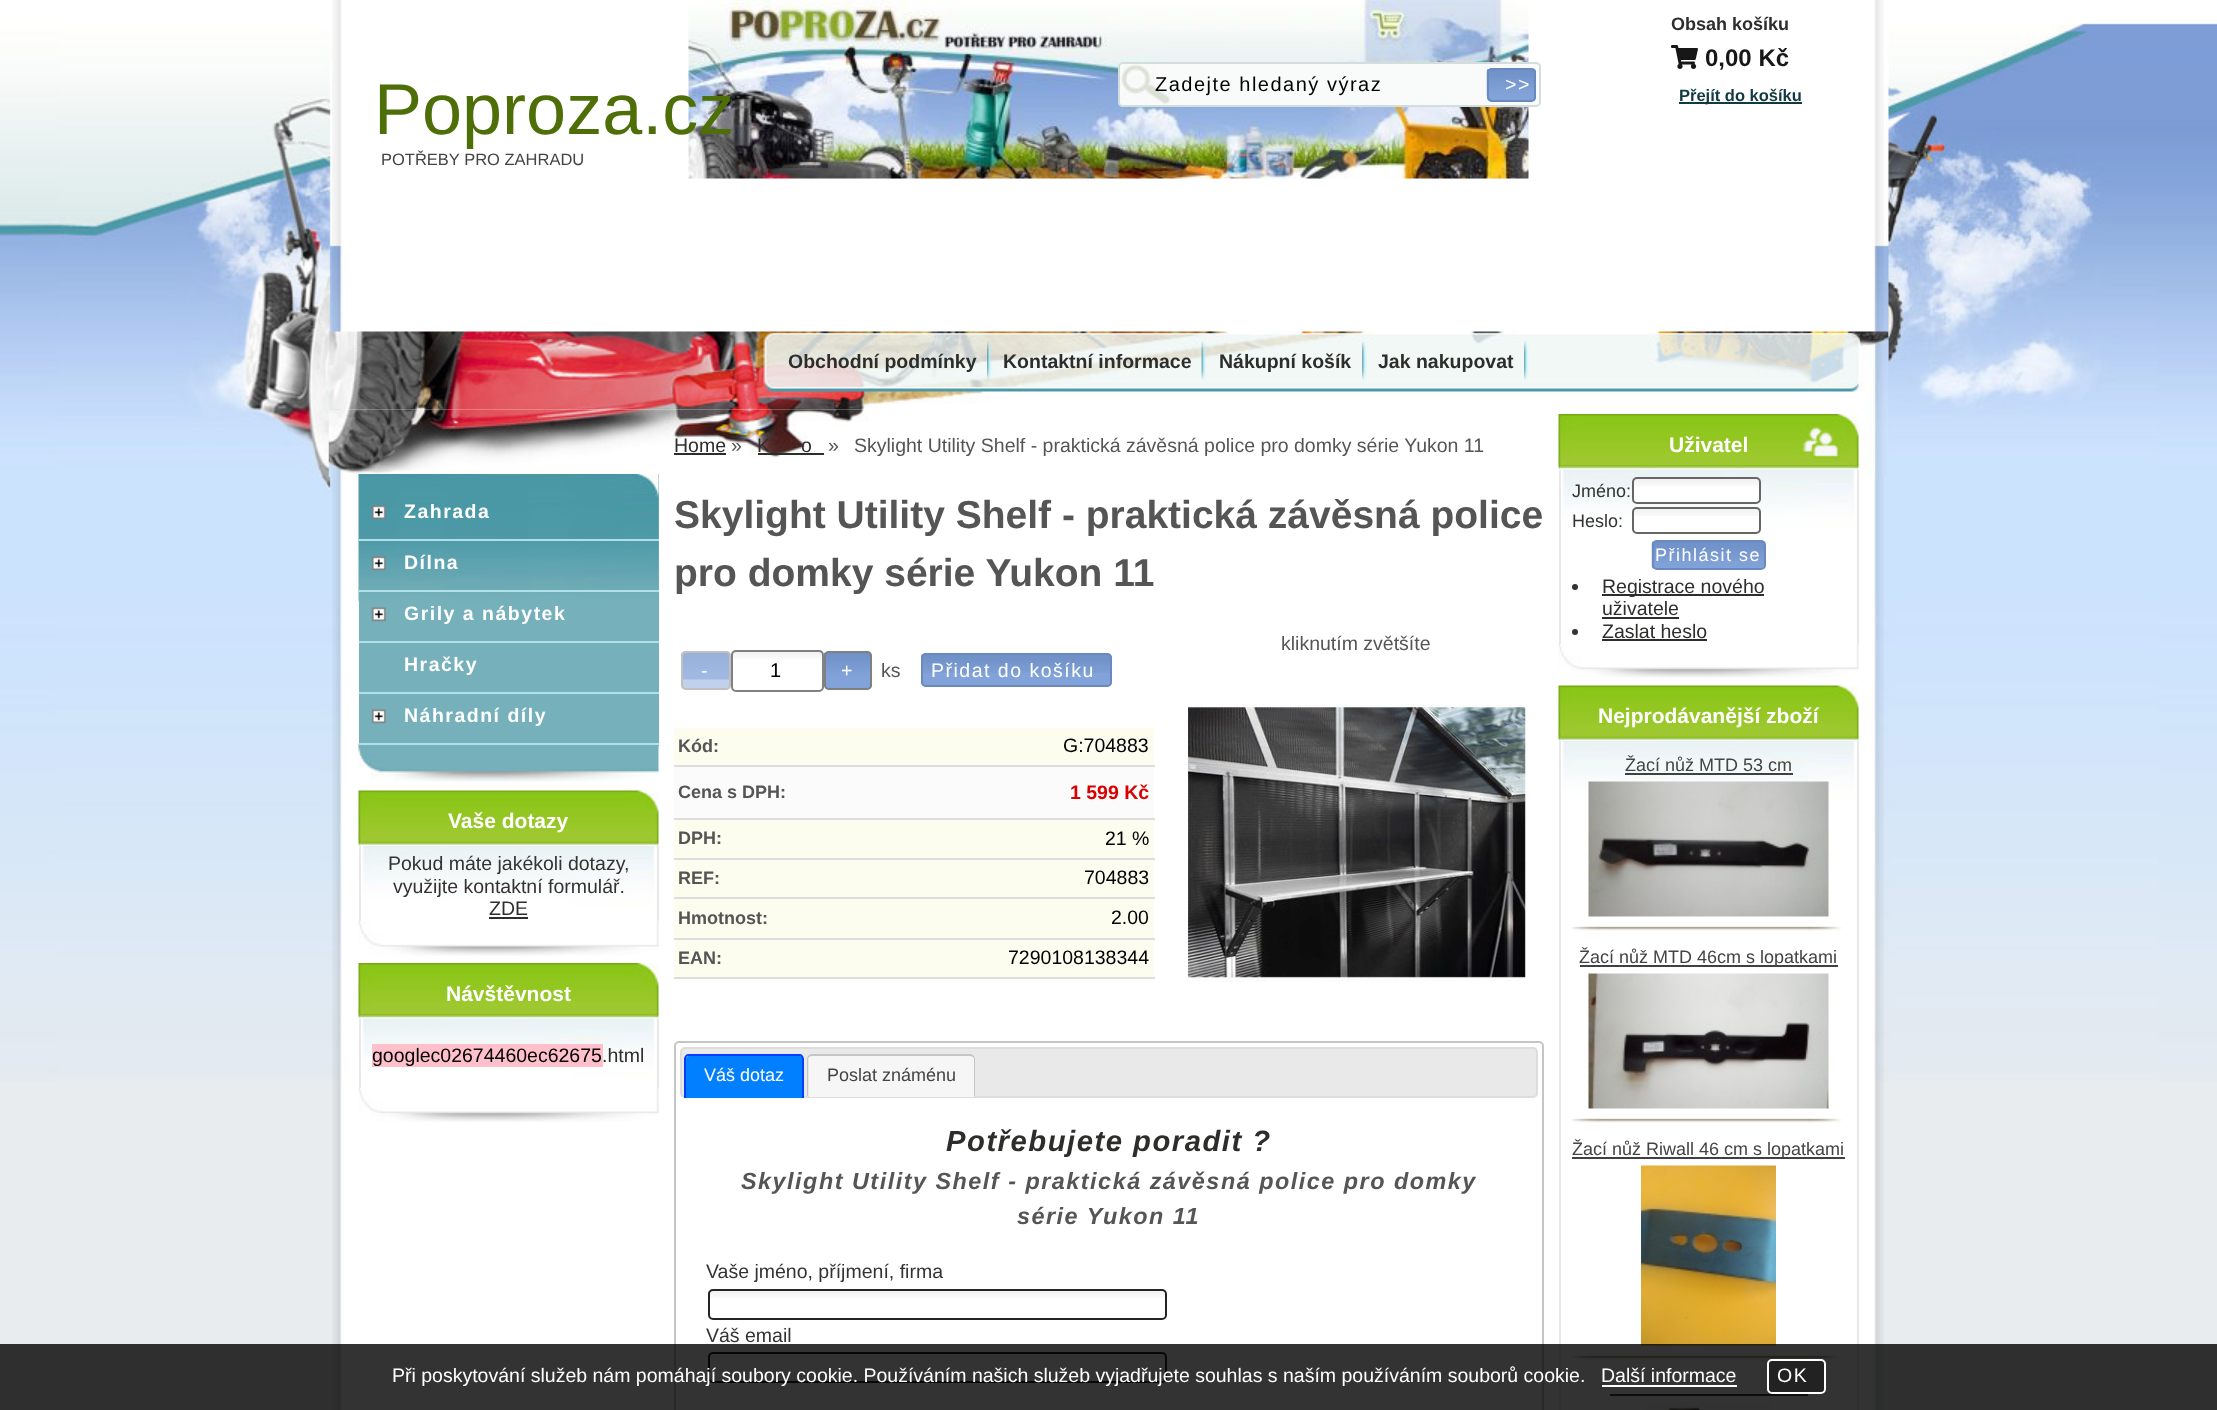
async function draw(canvas) {
  canvas.width = 2217;
  canvas.height = 1410;
  const ctx = canvas.getContext('2d');
  ctx.miterLimit = 4;
  ctx.fontKerning = 'normal';
  function label(s, x, y, font, color) {
    ctx.font = font;
    ctx.fillStyle = color;
    ctx.fillText(s, x, y);
  }
  function rect(x, y, w, h, color) {
    ctx.fillStyle = color;
    ctx.fillRect(x, y, w, h);
  }
  function roundedRect(x, y, w, h, r, color) {
    ctx.fillStyle = color;
    ctx.beginPath();
    ctx.roundRect(x, y, w, h, r);
    ctx.fill();
  }
  async function image(src, x, y, w, h) {
    const img = new Image();
    img.src = src;
    await img.decode();
    ctx.drawImage(img, x, y, w, h);
  }
  let path;

  rect(0, 0, 2217, 1410, '#e8ecef');
  await image('assets/img1.png', 0, 0, 2217, 1081);
  await image('assets/img2.png', 332, 0, 1552, 1410);
  await image('assets/img3.png', 688, 0, 841, 179);
  label('Obsah košíku', 1671, 30, 'bold 18px Liberation Sans', '#2d2e2c');
  rect(1679, 102, 123, 2, '#103941');
  label('Přejít do košíku', 1679, 101, 'bold 16.5px Liberation Sans', '#103941');
  await image('assets/img4.png', 1671, 45, 27, 24);
  label('0,00 Kč', 1705, 66, 'bold 24px Liberation Sans', '#171717');
  label('Poproza.cz', 374, 134, '72px Liberation Sans', '#4e6e08');
  roundedRect(1118, 62, 423, 45, 5, '#f9fafa');
  await image('assets/img5.png', 1119, 63, 52, 41);
  ctx.beginPath();
  ctx.roundRect(1119, 63, 421, 43, 4);
  ctx.strokeStyle = '#d2dedd';
  ctx.lineWidth = 2;
  ctx.stroke();
  ctx.letterSpacing = '1.5px';
  label('Zadejte hledaný výraz', 1155, 91, '20px Liberation Sans', '#000');
  roundedRect(1487, 68, 49, 34, 5, '#82a3d9');
  await image('assets/img6.png', 1486, 69, 50, 27);
  ctx.beginPath();
  ctx.roundRect(1488, 69, 47, 32, 4);
  ctx.strokeStyle = '#6a89be';
  ctx.stroke();
  label('>>', 1505, 91, '19.5px Liberation Sans', '#fff');
  ctx.letterSpacing = '0px';
  label('POTŘEBY PRO ZAHRADU', 381, 165, '16.5px Liberation Sans', '#444');
  await image('assets/img7.png', 328, 331, 1561, 79);
  await image('assets/img8.png', 987, 340, 5, 41);
  label('Obchodní podmínky', 788, 368, 'bold 19.5px Liberation Sans', '#2d2e2c');
  await image('assets/img9.png', 1201, 340, 5, 41);
  label('Kontaktní informace', 1003, 368, 'bold 19.5px Liberation Sans', '#2d2e2c');
  await image('assets/img10.png', 1362, 340, 5, 41);
  label('Nákupní košík', 1219, 368, 'bold 19.5px Liberation Sans', '#2d2e2c');
  await image('assets/img11.png', 1524, 340, 5, 41);
  label('Jak nakupovat', 1378, 368, 'bold 19.5px Liberation Sans', '#2d2e2c');
  await image('assets/img12.png', 328, 409, 1560, 68);
  await image('assets/img17.png', 358, 744, 301, 38);
  rect(359, 474, 300, 272, '#75b0bb');
  await image('assets/img13.png', 358, 474, 301, 128);
  rect(359, 539, 300, 2, '#b1e0e8');
  await image('assets/img14.png', 371, 505, 15, 15);
  ctx.letterSpacing = '1.5px';
  label('Zahrada', 404, 518, 'bold 19.5px Liberation Sans', '#fff');
  rect(359, 590, 300, 2, '#b1e0e8');
  await image('assets/img15.png', 371, 556, 15, 15);
  label('Dílna', 404, 569, 'bold 19.5px Liberation Sans', '#fff');
  rect(359, 641, 300, 2, '#b1e0e8');
  await image('assets/img16.png', 371, 607, 15, 15);
  label('Grily a nábytek', 404, 620, 'bold 19.5px Liberation Sans', '#fff');
  rect(359, 692, 300, 2, '#b1e0e8');
  label('Hračky', 404, 671, 'bold 19.5px Liberation Sans', '#fff');
  rect(359, 743, 300, 2, '#b1e0e8');
  await image('assets/img16.png', 371, 709, 15, 15);
  label('Náhradní díly', 404, 722, 'bold 19.5px Liberation Sans', '#fff');
  await image('assets/img18.png', 358, 790, 301, 56);
  ctx.letterSpacing = '0px';
  label('Vaše dotazy', 448, 828, 'bold 21px Liberation Sans', '#fff');
  await image('assets/img19.png', 362, 846, 293, 60);
  rect(657, 846, 2, 75, '#e8e8e8');
  rect(359, 846, 2, 75, '#e8e8e8');
  label('Pokud máte jakékoli dotazy,', 388, 870, '19.5px Liberation Sans', '#333');
  label('využijte kontaktní formulář.', 393, 893, '19.5px Liberation Sans', '#333');
  label('ZDE', 489, 915, '19.5px Liberation Sans', '#2d2e2c');
  rect(489, 917, 39, 2, '#2d2e2c');
  await image('assets/img20.png', 358, 921, 301, 35);
  await image('assets/img21.png', 358, 963, 301, 56);
  label('Návštěvnost', 446, 1001, 'bold 21px Liberation Sans', '#fff');
  await image('assets/img22.png', 362, 1018, 293, 60);
  await image('assets/img23.png', 358, 1087, 301, 35);
  rect(657, 1019, 2, 69, '#e8e8e8');
  rect(359, 1019, 2, 69, '#e8e8e8');
  rect(372, 1044, 231, 23, '#ffc0cb');
  label('googlec02674460ec62675', 372, 1062, '19.5px Liberation Sans', '#000');
  label('.html', 602, 1062, '19.5px Liberation Sans', '#2d2e2c');
  label('Home', 674, 452, '19.5px Liberation Sans', '#2d2e2c');
  rect(674, 453, 52, 2, '#2d2e2c');
  label('»', 731, 452, '19.5px Liberation Sans', '#555');
  label('K', 757, 452, '19.5px Liberation Sans', '#2d2e2c');
  label('o', 801, 452, '19.5px Liberation Sans', '#2d2e2c');
  rect(758, 453, 66, 2, '#2d2e2c');
  label('»', 828, 452, '19.5px Liberation Sans', '#555');
  label('Skylight Utility Shelf - praktická závěsná police pro domky série Yukon 11', 854, 452, '19.5px Liberation Sans', '#555');
  label('Skylight Utility Shelf - praktická závěsná police', 674, 528, 'bold 39px Liberation Sans', '#555');
  label('pro domky série Yukon 11', 674, 586, 'bold 39px Liberation Sans', '#555');
  label('kliknutím zvětšíte', 1281, 650, '19.5px Liberation Sans', '#555');
  await image('assets/img24.png', 1188, 704, 338, 278);
  roundedRect(681, 651, 50, 39, 5, '#c1d1ec');
  await image('assets/img25.png', 681, 652, 50, 28);
  ctx.beginPath();
  ctx.roundRect(682, 652, 48, 37, 4);
  ctx.strokeStyle = '#c0c0c0';
  ctx.stroke();
  ctx.letterSpacing = '1.5px';
  label('-', 701, 677, '19.5px Liberation Sans', '#fff');
  await image('assets/img26.png', 731, 651, 92, 8);
  ctx.beginPath();
  ctx.roundRect(732, 651, 91, 40, 4);
  ctx.strokeStyle = '#808080';
  ctx.stroke();
  label('1', 770, 677, '20px Liberation Sans', '#000');
  roundedRect(824, 651, 48, 39, 5, '#82a3d9');
  await image('assets/img27.png', 823, 652, 49, 28);
  ctx.beginPath();
  ctx.roundRect(825, 652, 46, 37, 4);
  ctx.stroke();
  label('+', 841, 677, '19.5px Liberation Sans', '#fff');
  ctx.letterSpacing = '0px';
  label('ks', 881, 677, '19.5px Liberation Sans', '#555');
  roundedRect(921, 653, 191, 34, 5, '#82a3d9');
  await image('assets/img28.png', 921, 654, 191, 19);
  ctx.beginPath();
  ctx.roundRect(922, 654, 189, 32, 4);
  ctx.strokeStyle = '#6a89be';
  ctx.stroke();
  ctx.letterSpacing = '1.5px';
  label('Přidat do košíku', 931, 677, '19.5px Liberation Sans', '#fff');
  rect(674, 728, 480, 249, '#fcfcef');
  ctx.letterSpacing = '0px';
  label('Kód:', 678, 752, 'bold 18px Liberation Sans', '#555');
  rect(674, 765, 481, 2, '#ddd');
  label('G:704883', 1063, 752, '19.5px Liberation Sans', '#000');
  rect(674, 767, 480, 51, '#fbfbfb');
  label('Cena s DPH:', 678, 798, 'bold 18px Liberation Sans', '#555');
  rect(674, 818, 481, 2, '#ddd');
  label('1 599 Kč', 1070, 799, 'bold 19.5px Liberation Sans', '#da0000');
  label('DPH:', 678, 844, 'bold 18px Liberation Sans', '#555');
  rect(674, 858, 481, 2, '#ddd');
  label('21 %', 1105, 845, '19.5px Liberation Sans', '#000');
  label('REF:', 678, 884, 'bold 18px Liberation Sans', '#555');
  rect(674, 897, 481, 2, '#ddd');
  label('704883', 1084, 884, '19.5px Liberation Sans', '#000');
  label('Hmotnost:', 678, 924, 'bold 18px Liberation Sans', '#555');
  rect(674, 938, 481, 2, '#ddd');
  label('2.00', 1111, 924, '19.5px Liberation Sans', '#000');
  label('EAN:', 678, 964, 'bold 18px Liberation Sans', '#555');
  rect(674, 977, 481, 2, '#ddd');
  label('7290108138344', 1008, 964, '19.5px Liberation Sans', '#000');
  ctx.beginPath();
  ctx.roundRect(675, 1042, 868, 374, 4);
  ctx.strokeStyle = '#c5c5c5';
  ctx.stroke();
  ctx.fillStyle = '#e9e9e9';
  ctx.beginPath();
  ctx.roundRect(681, 1048, 856, 49, 4);
  ctx.fill();
  ctx.strokeStyle = '#ddd';
  ctx.stroke();
  ctx.fillStyle = '#007fff';
  ctx.beginPath();
  ctx.roundRect(686, 1056, 117, 42, [3, 3, 0, 0]);
  ctx.fill();
  ctx.fillStyle = '#003eff';
  path = new Path2D('M688 1054H800C802 1054 804 1057 804 1059V1098H684V1059C684 1057 686 1054 688 1054ZM688 1056H800C801 1056 802 1057 802 1059V1098H686V1059C686 1057 687 1056 688 1056Z');
  ctx.fill(path, 'evenodd');
  label('Váš dotaz', 704, 1081, '18px Liberation Sans', '#fff');
  ctx.fillStyle = '#f6f6f6';
  ctx.beginPath();
  ctx.roundRect(809, 1056, 165, 41, [3, 3, 0, 0]);
  ctx.fill();
  ctx.fillStyle = '#c5c5c5';
  path = new Path2D('M812 1054H970C973 1054 975 1057 975 1059V1096H807V1059C807 1057 809 1054 812 1054ZM812 1056H970C972 1056 974 1057 974 1059V1096H808V1059C808 1057 810 1056 812 1056Z');
  ctx.fill(path, 'evenodd');
  label('Poslat známénu', 827, 1081, '18px Liberation Sans', '#444');
  ctx.letterSpacing = '1.5px';
  label('Potřebujete poradit ?', 946, 1151, 'italic bold 29.25px Liberation Sans', '#2d2e2c');
  label('Skylight Utility Shelf - praktická závěsná police pro domky', 741, 1189, 'italic bold 23.4px Liberation Sans', '#555');
  label('série Yukon 11', 1017, 1224, 'italic bold 23.4px Liberation Sans', '#555');
  ctx.letterSpacing = '0px';
  label('Vaše jméno, příjmení, firma', 706, 1278, '19.5px Liberation Sans', '#333');
  await image('assets/img29.png', 708, 1290, 459, 8);
  ctx.beginPath();
  ctx.roundRect(709, 1290, 457, 29, 4);
  ctx.strokeStyle = '#242424';
  ctx.stroke();
  label('Váš email', 706, 1342, '19.5px Liberation Sans', '#333');
  await image('assets/img29.png', 708, 1353, 459, 8);
  ctx.beginPath();
  ctx.roundRect(709, 1353, 457, 29, 4);
  ctx.stroke();
  await image('assets/img30.png', 1558, 414, 301, 56);
  label('Uživatel', 1669, 452, 'bold 21px Liberation Sans', '#fff');
  await image('assets/img31.png', 1562, 469, 293, 60);
  await image('assets/img35.png', 1558, 643, 301, 35);
  rect(1857, 470, 2, 174, '#e8e8e8');
  rect(1559, 470, 2, 174, '#e8e8e8');
  label('Jméno:', 1572, 497, '18px Liberation Sans', '#333');
  roundedRect(1632, 477, 129, 27, 5, '#fff');
  await image('assets/img32.png', 1632, 478, 129, 8);
  ctx.beginPath();
  ctx.roundRect(1633, 478, 127, 25, 4);
  ctx.strokeStyle = '#666';
  ctx.stroke();
  label('Heslo:', 1572, 527, '18px Liberation Sans', '#333');
  roundedRect(1632, 507, 129, 27, 5, '#fff');
  await image('assets/img33.png', 1632, 508, 129, 8);
  ctx.beginPath();
  ctx.roundRect(1633, 508, 127, 25, 4);
  ctx.stroke();
  await image('assets/img34.png', 1651, 541, 115, 28);
  ctx.beginPath();
  ctx.roundRect(1653, 541, 112, 28, 4);
  ctx.strokeStyle = '#6a89be';
  ctx.stroke();
  ctx.letterSpacing = '1.5px';
  label('Přihlásit se', 1655, 561, '18px Liberation Sans', '#fff');
  ctx.fillStyle = '#333';
  ctx.beginPath();
  ctx.arc(1575, 587, 3, 0, 2 * Math.PI);
  ctx.fill();
  rect(1602, 594, 162, 2, '#2d2e2c');
  ctx.letterSpacing = '0px';
  label('Registrace nového', 1602, 593, '19.5px Liberation Sans', '#2d2e2c');
  label('uživatele', 1602, 615, '19.5px Liberation Sans', '#2d2e2c');
  rect(1602, 617, 77, 2, '#2d2e2c');
  ctx.fillStyle = '#333';
  ctx.beginPath();
  ctx.arc(1575, 632, 3, 0, 2 * Math.PI);
  ctx.fill();
  label('Zaslat heslo', 1602, 638, '19.5px Liberation Sans', '#2d2e2c');
  rect(1602, 639, 105, 2, '#2d2e2c');
  await image('assets/img36.png', 1558, 685, 301, 56);
  label('Nejprodávanější zboží', 1598, 723, 'bold 21px Liberation Sans', '#fff');
  await image('assets/img37.png', 1562, 741, 293, 60);
  rect(1857, 741, 2, 669, '#e8e8e8');
  rect(1559, 741, 2, 669, '#e8e8e8');
  await image('assets/img38.png', 1572, 926, 270, 5);
  label('Žací nůž MTD 53 cm', 1625, 771, '18px Liberation Sans', '#444');
  rect(1625, 773, 168, 2, '#404040');
  await image('assets/img39.png', 1588, 781, 241, 136);
  await image('assets/img38.png', 1572, 1118, 270, 5);
  rect(1580, 965, 258, 2, '#404040');
  label('Žací nůž MTD 46cm s lopatkami', 1579, 963, '18px Liberation Sans', '#444');
  await image('assets/img40.png', 1588, 973, 241, 136);
  await image('assets/img38.png', 1572, 1355, 270, 5);
  rect(1572, 1157, 273, 2, '#404040');
  label('Žací nůž Riwall 46 cm s lopatkami', 1572, 1155, '18px Liberation Sans', '#444');
  await image('assets/img41.png', 1641, 1165, 135, 181);
  rect(1610, 1394, 198, 2, '#404040');
  await image('assets/img42.png', 1646, 1402, 125, 8);
  rect(0, 1344, 2217, 66, '#000000cc');
  label('Při poskytování služeb nám pomáhají soubory cookie. Používáním našich služeb vyjadřujete souhlas s naším používáním souborů cookie.', 392, 1382, '19.5px Liberation Sans', '#fff');
  label('Další informace', 1601, 1382, '19.5px Liberation Sans', '#fff');
  rect(1602, 1385, 135, 2, '#fff');
  ctx.fillStyle = '#222';
  ctx.beginPath();
  ctx.roundRect(1768, 1360, 57, 33, 4);
  ctx.fill();
  ctx.strokeStyle = '#fff';
  ctx.stroke();
  ctx.letterSpacing = '1.5px';
  label('OK', 1777, 1382, '19.5px Liberation Sans', '#fff');
}

draw(document.querySelector('canvas'));
